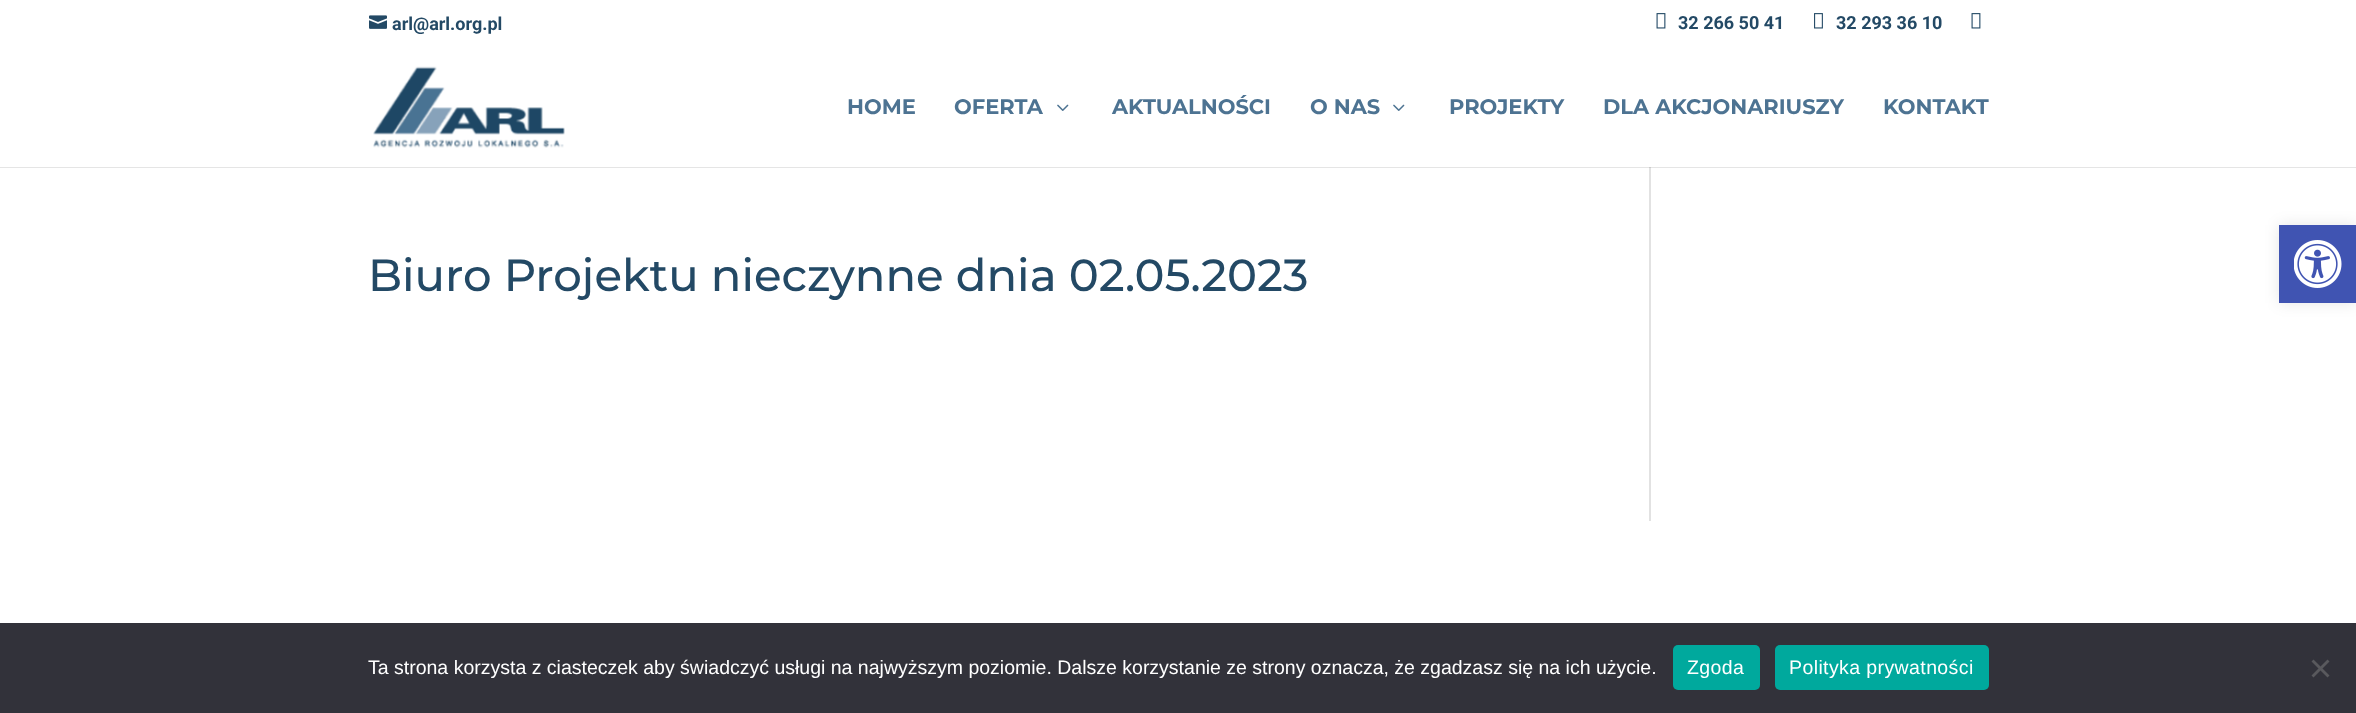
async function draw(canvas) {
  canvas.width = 2356;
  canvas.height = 713;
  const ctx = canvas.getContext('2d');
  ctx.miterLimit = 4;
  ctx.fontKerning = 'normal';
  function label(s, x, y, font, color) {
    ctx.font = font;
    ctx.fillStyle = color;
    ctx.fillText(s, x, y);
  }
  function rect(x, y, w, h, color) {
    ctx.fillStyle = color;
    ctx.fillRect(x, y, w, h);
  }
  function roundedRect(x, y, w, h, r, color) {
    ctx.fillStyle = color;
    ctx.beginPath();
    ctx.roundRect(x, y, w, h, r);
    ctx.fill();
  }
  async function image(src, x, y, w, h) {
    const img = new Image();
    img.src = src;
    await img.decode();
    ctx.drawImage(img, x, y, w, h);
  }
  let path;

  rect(0, 0, 2356, 713, '#fff');
  await image('assets/img1.png', 369, 15, 18, 14);
  label('arl@arl.org.pl', 392, 30, 'bold 18px Roboto', '#234965');
  await image('assets/img2.png', 1656, 13, 10, 16);
  label('32 266 50 41', 1678, 29, 'bold 18px Roboto', '#234965');
  await image('assets/img3.png', 1814, 13, 9, 16);
  label('32 293 36 10', 1836, 29, 'bold 18px Roboto', '#234965');
  await image('assets/img2.png', 1971, 13, 10, 16);
  rect(1649, 167, 2, 354, '#e2e2e2');
  ctx.fillStyle = '#0000001a';
  path = new Path2D('M0 166V168H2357V48H2356V166Z');
  ctx.fill(path);
  rect(0, 166, 2356, 1, '#fff');
  await image('assets/img4.png', 373, 66, 192, 82);
  label('HOME', 847, 114, '100 21px "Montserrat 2"', '#4d7392');
  label('OFERTA', 954, 114, '100 21px "Montserrat 2"', '#4d7392');
  await image('assets/img5.png', 1057, 104, 12, 7);
  label('AKTUALNOŚCI', 1112, 114, '100 21px "Montserrat 2"', '#4d7392');
  label('O NAS', 1310, 114, '100 21px "Montserrat 2"', '#4d7392');
  await image('assets/img5.png', 1393, 104, 12, 7);
  label('PROJEKTY', 1449, 114, '100 21px "Montserrat 2"', '#4d7392');
  label('DLA AKCJONARIUSZY', 1603, 114, '100 21px "Montserrat 2"', '#4d7392');
  label('KONTAKT', 1883, 114, '100 21px "Montserrat 2"', '#4d7392');
  label('Biuro Projektu nieczynne dnia 02.05.2023', 368, 291, '100 45px Montserrat', '#234965');
  ctx.fillStyle = '#0000001a';
  ctx.filter = 'blur(7.5px)';
  ctx.beginPath();
  ctx.rect(2279, 225, 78, 78);
  ctx.fill();
  ctx.filter = 'none';
  rect(2279, 225, 77, 78, '#4054b2');
  await image('assets/img6.png', 2294, 240, 48, 48);
  rect(0, 623, 2356, 90, '#32323a');
  label('Ta strona korzysta z ciasteczek aby świadczyć usługi na najwyższym poziomie. Dalsze korzystanie ze strony oznacza, że zgadzasz się na ich użycie.', 368, 674, '19.5px Liberation Sans', '#fff');
  roundedRect(1673, 645, 87, 45, 5, '#00a99d');
  ctx.letterSpacing = '0.4px';
  label('Zgoda', 1687, 674, '19.5px Liberation Sans', '#fff');
  roundedRect(1775, 645, 214, 45, 5, '#00a99d');
  label('Polityka prywatności', 1789, 674, '19.5px Liberation Sans', '#fff');
  ctx.fillStyle = '#59595d';
  path = new Path2D('M2327.5 659.5L2329.5 661.5L2313.5 677.5L2311.5 675.5Z');
  ctx.fill(path);
  path = new Path2D('M2311.5 661.5L2313.5 659.5L2329.5 675.5L2327.5 677.5Z');
  ctx.fill(path);
}

draw(document.querySelector('canvas'));
